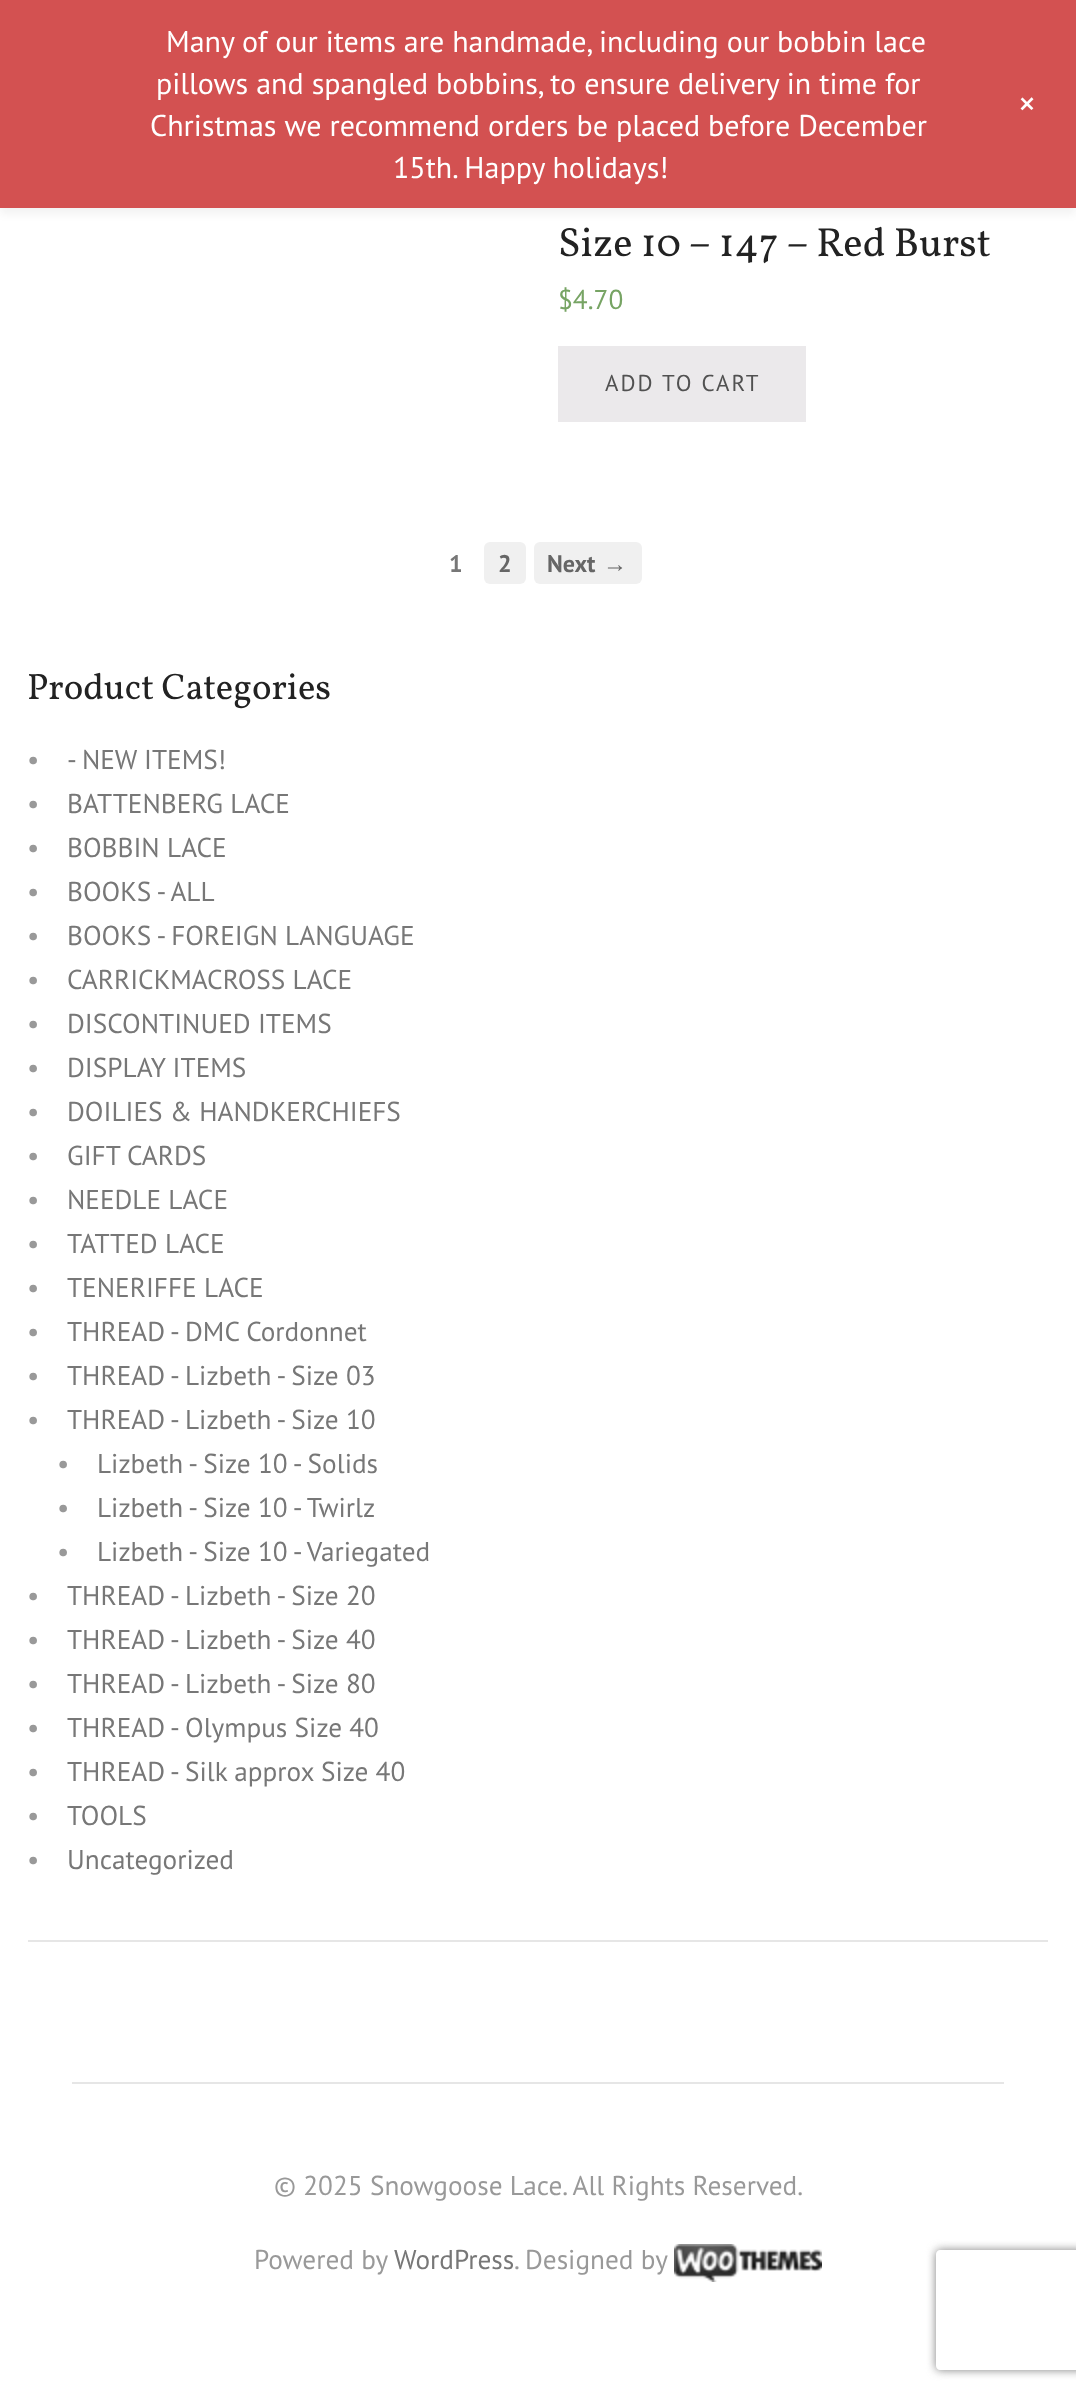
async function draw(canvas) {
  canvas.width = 1076;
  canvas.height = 2397;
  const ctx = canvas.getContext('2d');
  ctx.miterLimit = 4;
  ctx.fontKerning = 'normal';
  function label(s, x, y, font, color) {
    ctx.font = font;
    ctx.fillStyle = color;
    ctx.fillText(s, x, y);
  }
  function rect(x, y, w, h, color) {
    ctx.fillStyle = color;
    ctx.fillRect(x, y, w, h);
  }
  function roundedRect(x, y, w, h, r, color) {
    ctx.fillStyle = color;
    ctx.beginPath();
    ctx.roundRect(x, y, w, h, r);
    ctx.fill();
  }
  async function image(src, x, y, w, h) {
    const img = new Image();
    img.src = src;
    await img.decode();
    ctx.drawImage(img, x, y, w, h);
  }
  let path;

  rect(0, 0, 1076, 2397, '#fff');
  ctx.fillStyle = '#0000000d';
  ctx.filter = 'blur(4px)';
  ctx.beginPath();
  ctx.rect(0, 6, 1076, 208);
  ctx.fill();
  ctx.filter = 'none';
  rect(0, 0, 1076, 208, '#d35151');
  label('Many of our items are handmade, including our bobbin lace', 166, 52, '30px PT Sans', '#fff');
  label('pillows and spangled bobbins, to ensure delivery in time for', 156, 94, '30px PT Sans', '#fff');
  label('Christmas we recommend orders be placed before December', 150, 136, '30px PT Sans', '#fff');
  label('15th. Happy holidays!', 393, 178, '30px PT Sans', '#fff');
  ctx.font = '36px PT Sans';
  ctx.save();
  ctx.translate(1012, 106);
  ctx.rotate(45 * Math.PI / 180);
  ctx.fillText('+', 0, 0);
  ctx.restore();
  label('Size 10 – 147 – Red Burst', 558, 256, '40.75px Vollkorn', '#222');
  label('$4.70', 558, 309, '27.25px PT Sans', '#77a464');
  rect(558, 346, 248, 76, '#ebe9eb');
  ctx.letterSpacing = '2px';
  label('ADD TO CART', 605, 391, '23px PT Sans', '#515151');
  ctx.letterSpacing = '0px';
  label('1', 449, 572, 'bold 24px PT Sans', '#777');
  roundedRect(484, 542, 42, 42, 6, '#f0f0f0');
  label('2', 498, 572, 'bold 24px PT Sans', '#666');
  roundedRect(534, 542, 108, 42, 6, '#f0f0f0');
  label('Next', 547, 572, 'bold 24px PT Sans', '#666');
  label('→', 603, 572, 'bold 24px Liberation Sans', '#666');
  rect(28, 1940, 1020, 2, '#e6e6e6');
  label('Product Categories', 27, 699, '36.75px Vollkorn', '#222');
  label('•', 27, 769, '27.25px PT Sans', '#999');
  label('- NEW ITEMS!', 67, 769, '27.25px PT Sans', '#777');
  label('•', 27, 813, '27.25px PT Sans', '#999');
  label('BATTENBERG LACE', 67, 813, '27.25px PT Sans', '#777');
  label('•', 27, 857, '27.25px PT Sans', '#999');
  label('BOBBIN LACE', 67, 857, '27.25px PT Sans', '#777');
  label('•', 27, 901, '27.25px PT Sans', '#999');
  label('BOOKS - ALL', 67, 901, '27.25px PT Sans', '#777');
  label('•', 27, 945, '27.25px PT Sans', '#999');
  label('BOOKS - FOREIGN LANGUAGE', 67, 945, '27.25px PT Sans', '#777');
  label('•', 27, 989, '27.25px PT Sans', '#999');
  label('CARRICKMACROSS LACE', 67, 989, '27.25px PT Sans', '#777');
  label('•', 27, 1033, '27.25px PT Sans', '#999');
  label('DISCONTINUED ITEMS', 67, 1033, '27.25px PT Sans', '#777');
  label('•', 27, 1077, '27.25px PT Sans', '#999');
  label('DISPLAY ITEMS', 67, 1077, '27.25px PT Sans', '#777');
  label('•', 27, 1121, '27.25px PT Sans', '#999');
  label('DOILIES & HANDKERCHIEFS', 67, 1121, '27.25px PT Sans', '#777');
  label('•', 27, 1165, '27.25px PT Sans', '#999');
  label('GIFT CARDS', 67, 1165, '27.25px PT Sans', '#777');
  label('•', 27, 1209, '27.25px PT Sans', '#999');
  label('NEEDLE LACE', 67, 1209, '27.25px PT Sans', '#777');
  label('•', 27, 1253, '27.25px PT Sans', '#999');
  label('TATTED LACE', 67, 1253, '27.25px PT Sans', '#777');
  label('•', 27, 1297, '27.25px PT Sans', '#999');
  label('TENERIFFE LACE', 67, 1297, '27.25px PT Sans', '#777');
  label('•', 27, 1341, '27.25px PT Sans', '#999');
  label('THREAD - DMC Cordonnet', 67, 1341, '27.25px PT Sans', '#777');
  label('•', 27, 1385, '27.25px PT Sans', '#999');
  label('THREAD - Lizbeth - Size 03', 67, 1385, '27.25px PT Sans', '#777');
  label('•', 27, 1429, '27.25px PT Sans', '#999');
  label('THREAD - Lizbeth - Size 10', 67, 1429, '27.25px PT Sans', '#777');
  label('•', 57, 1473, '27.25px PT Sans', '#999');
  label('Lizbeth - Size 10 - Solids', 97, 1473, '27.25px PT Sans', '#777');
  label('•', 57, 1517, '27.25px PT Sans', '#999');
  label('Lizbeth - Size 10 - Twirlz', 97, 1517, '27.25px PT Sans', '#777');
  label('•', 57, 1561, '27.25px PT Sans', '#999');
  label('Lizbeth - Size 10 - Variegated', 97, 1561, '27.25px PT Sans', '#777');
  label('•', 27, 1605, '27.25px PT Sans', '#999');
  label('THREAD - Lizbeth - Size 20', 67, 1605, '27.25px PT Sans', '#777');
  label('•', 27, 1649, '27.25px PT Sans', '#999');
  label('THREAD - Lizbeth - Size 40', 67, 1649, '27.25px PT Sans', '#777');
  label('•', 27, 1693, '27.25px PT Sans', '#999');
  label('THREAD - Lizbeth - Size 80', 67, 1693, '27.25px PT Sans', '#777');
  label('•', 27, 1737, '27.25px PT Sans', '#999');
  label('THREAD - Olympus Size 40', 67, 1737, '27.25px PT Sans', '#777');
  label('•', 27, 1781, '27.25px PT Sans', '#999');
  label('THREAD - Silk approx Size 40', 67, 1781, '27.25px PT Sans', '#777');
  label('•', 27, 1825, '27.25px PT Sans', '#999');
  label('TOOLS', 67, 1825, '27.25px PT Sans', '#777');
  label('•', 27, 1869, '27.25px PT Sans', '#999');
  label('Uncategorized', 67, 1869, '27.25px PT Sans', '#777');
  rect(72, 2082, 932, 2, '#e6e6e6');
  label('© 2025 Snowgoose Lace. All Rights Reserved.', 274, 2195, '27.25px PT Sans', '#999');
  label('Powered by', 254, 2269, '27.25px PT Sans', '#999');
  label('WordPress', 394, 2269, '27.25px PT Sans', '#777');
  label('. Designed by', 514, 2269, '27.25px PT Sans', '#999');
  await image('assets/img1.png', 674, 2244, 148, 38);
  ctx.save();
  path = new Path2D('M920 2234H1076V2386H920ZM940 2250H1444C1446 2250 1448 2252 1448 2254V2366C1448 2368 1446 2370 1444 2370H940C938 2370 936 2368 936 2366V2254C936 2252 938 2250 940 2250Z');
  ctx.clip(path, 'evenodd');
  ctx.fillStyle = '#808080';
  ctx.filter = 'blur(5px)';
  ctx.beginPath();
  ctx.roundRect(936, 2250, 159, 120, 4);
  ctx.fill();
  ctx.filter = 'none';
  ctx.restore();
}

draw(document.querySelector('canvas'));
